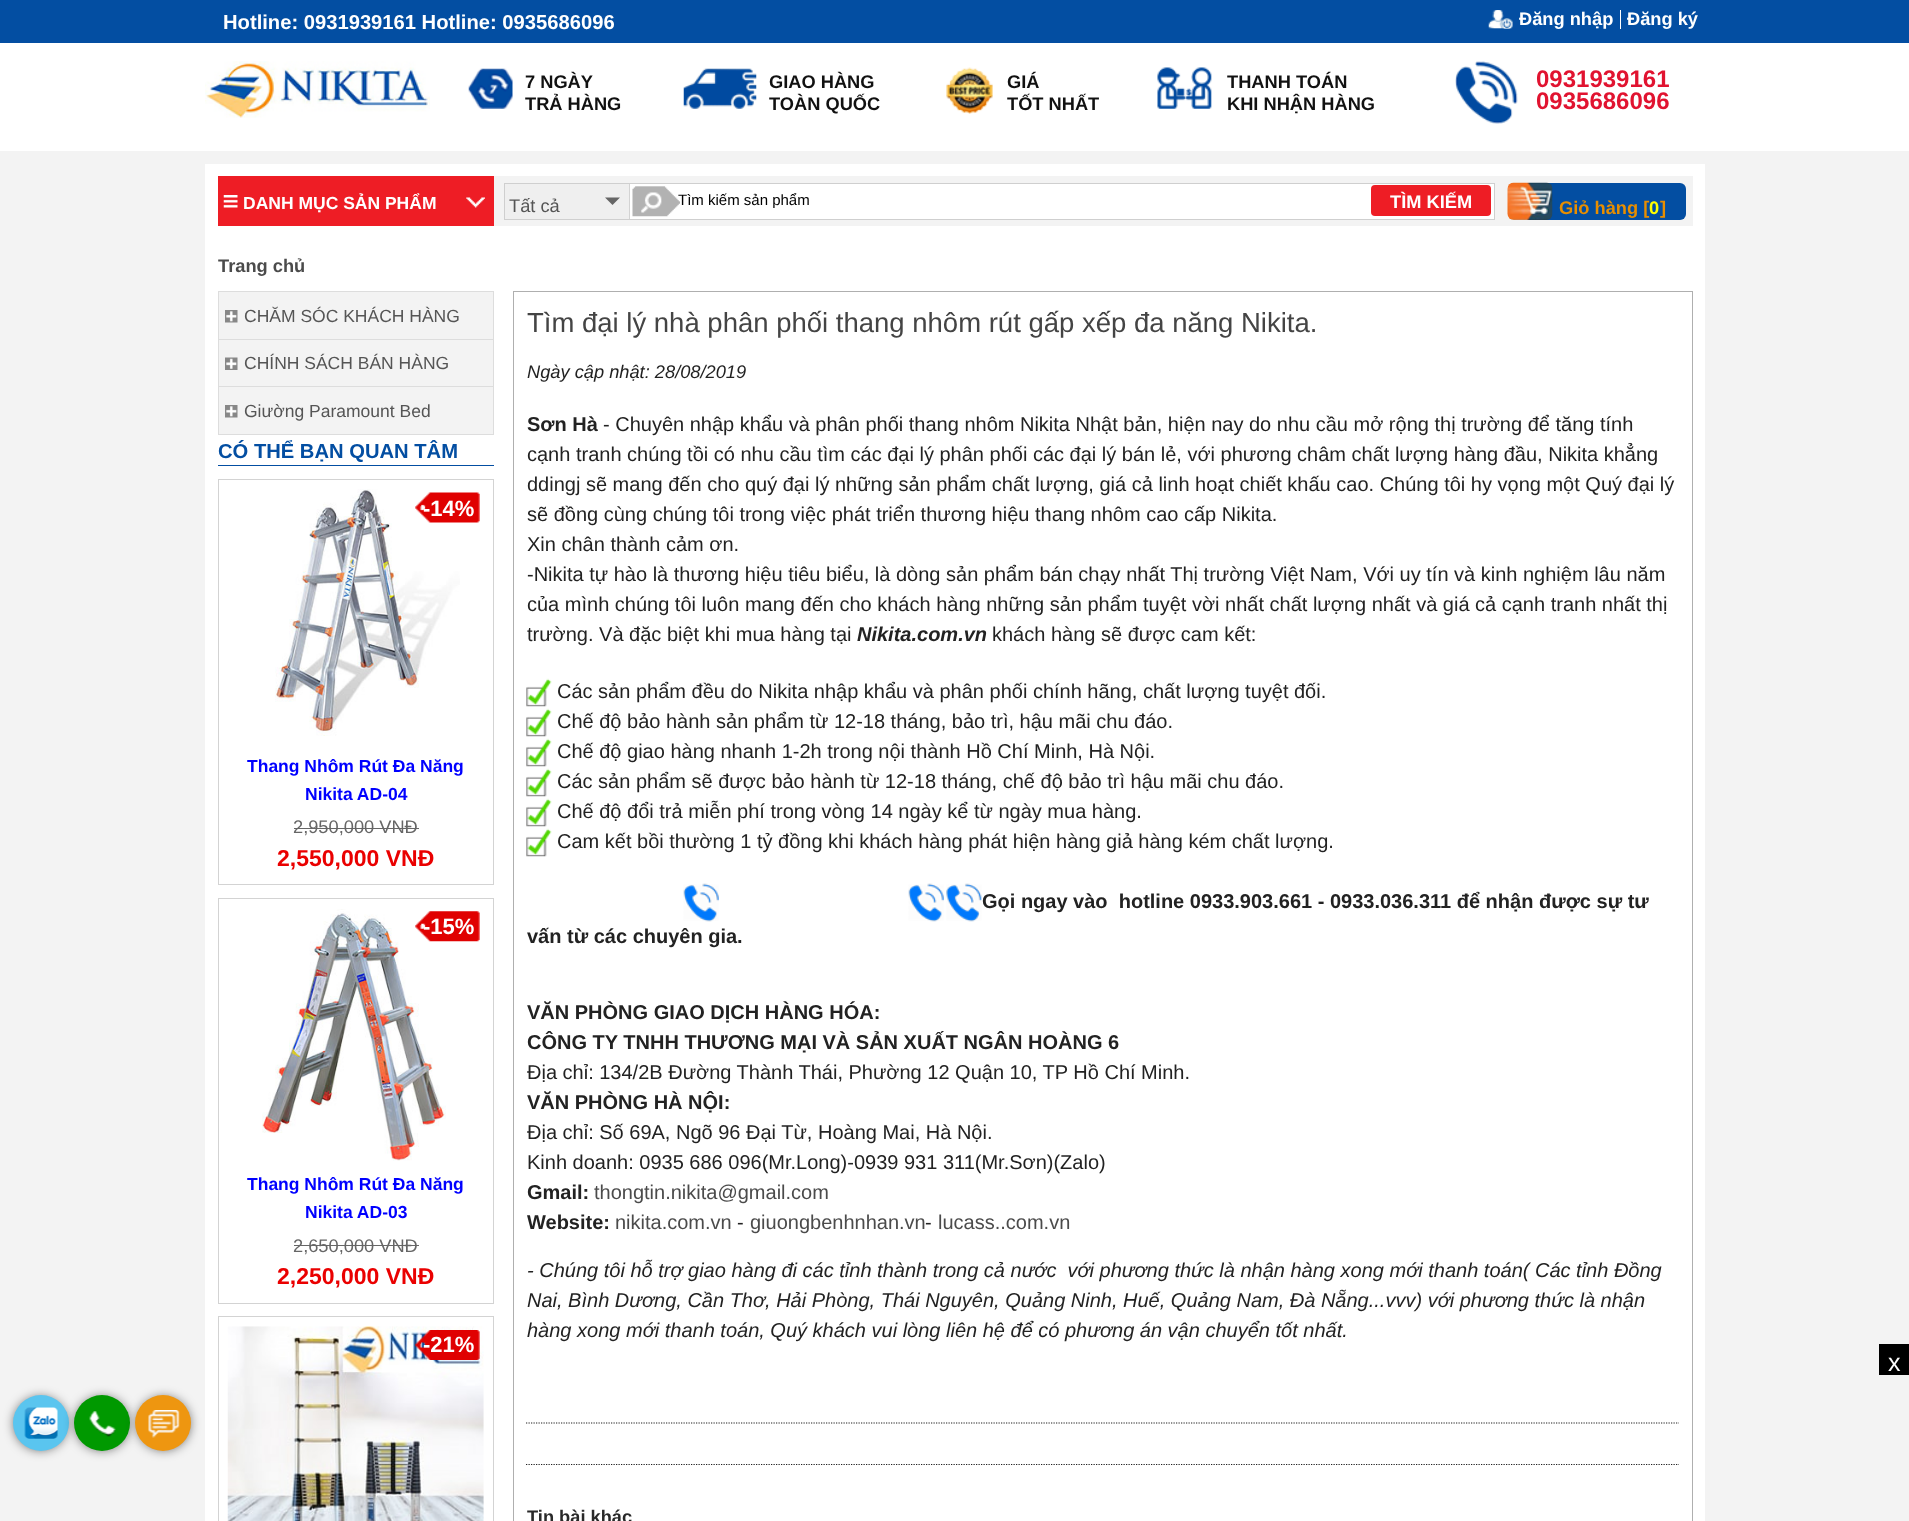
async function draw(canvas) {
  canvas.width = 1909;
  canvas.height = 1521;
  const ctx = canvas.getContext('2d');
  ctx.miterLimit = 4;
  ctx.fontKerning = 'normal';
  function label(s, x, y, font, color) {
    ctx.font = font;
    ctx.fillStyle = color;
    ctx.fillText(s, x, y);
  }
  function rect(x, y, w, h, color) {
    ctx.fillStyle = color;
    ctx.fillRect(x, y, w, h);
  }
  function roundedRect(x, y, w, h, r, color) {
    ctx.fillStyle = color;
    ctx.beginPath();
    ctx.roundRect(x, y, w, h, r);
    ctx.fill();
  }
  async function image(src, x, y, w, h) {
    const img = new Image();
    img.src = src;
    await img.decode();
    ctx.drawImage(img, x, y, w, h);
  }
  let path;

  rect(0, 0, 1909, 1521, '#f3f3f3');
  rect(0, 0, 1909, 43, '#034ea2');
  label('Hotline: 0931939161 Hotline: 0935686096', 223, 29, 'bold 20.2px Liberation Sans', '#fff');
  rect(1620, 10, 1, 19, '#fff');
  await image('assets/img1.png', 1488, 10, 25, 19);
  label('Đăng nhập', 1519, 25, 'bold 18.25px Liberation Sans', '#fff');
  label('Đăng ký', 1627, 25, 'bold 18.25px Liberation Sans', '#fff');
  rect(0, 43, 1909, 108, '#fff');
  await image('assets/img2.png', 205, 61, 225, 57);
  await image('assets/img3.png', 468, 68, 45, 41);
  label('7 NGÀY', 525, 88, 'bold 18.25px Liberation Sans', '#111');
  label('TRẢ HÀNG', 525, 110, 'bold 18.25px Liberation Sans', '#111');
  await image('assets/img4.png', 683, 68, 74, 41);
  label('GIAO HÀNG', 769, 88, 'bold 18.25px Liberation Sans', '#111');
  label('TOÀN QUỐC', 769, 110, 'bold 18.25px Liberation Sans', '#111');
  await image('assets/img5.png', 946, 67, 47, 47);
  label('GIÁ', 1007, 88, 'bold 18.25px Liberation Sans', '#111');
  label('TỐT NHẤT', 1007, 110, 'bold 18.25px Liberation Sans', '#111');
  await image('assets/img6.png', 1157, 67, 55, 42);
  label('THANH TOÁN', 1227, 88, 'bold 18.25px Liberation Sans', '#111');
  label('KHI NHẬN HÀNG', 1227, 110, 'bold 18.25px Liberation Sans', '#111');
  await image('assets/img7.png', 1455, 61, 63, 63);
  label('0931939161', 1536, 87, 'bold 24px Liberation Sans', '#e11330');
  label('0935686096', 1536, 109, 'bold 24px Liberation Sans', '#e11330');
  ctx.fillStyle = '#000000b3';
  ctx.filter = 'blur(6px)';
  ctx.beginPath();
  ctx.roundRect(15, 1398, 51, 51, 25.5);
  ctx.fill();
  ctx.filter = 'none';
  ctx.fillStyle = '#5ac5ef';
  ctx.beginPath();
  ctx.arc(41, 1423, 28, 0, 2 * Math.PI);
  ctx.fill();
  await image('assets/img8.png', 24, 1407, 34, 32);
  ctx.fillStyle = '#000000b3';
  ctx.filter = 'blur(6px)';
  ctx.beginPath();
  ctx.roundRect(76, 1398, 52, 51, 25.5);
  ctx.fill();
  ctx.filter = 'none';
  ctx.fillStyle = '#090';
  ctx.beginPath();
  ctx.arc(102, 1423, 28, 0, 2 * Math.PI);
  ctx.fill();
  await image('assets/img9.png', 89, 1411, 27, 26);
  rect(205, 164, 1500, 1357, '#fff');
  ctx.fillStyle = '#000000b3';
  ctx.filter = 'blur(6px)';
  ctx.beginPath();
  ctx.roundRect(138, 1398, 51, 51, 25.5);
  ctx.fill();
  ctx.filter = 'none';
  ctx.fillStyle = '#ee9610';
  ctx.beginPath();
  ctx.arc(163, 1423, 28, 0, 2 * Math.PI);
  ctx.fill();
  await image('assets/img10.png', 148, 1410, 32, 28);
  rect(218, 176, 276, 50, '#ee1d25');
  await image('assets/img11.png', 223, 195, 15, 13);
  label('DANH MỤC SẢN PHẨM', 243, 209, 'bold 17.5px Liberation Sans', '#fff');
  await image('assets/img12.png', 466, 197, 19, 11);
  rect(494, 176, 1199, 50, '#f3f3f3');
  rect(630, 184, 864, 35, '#fff');
  ctx.strokeStyle = '#cfcfcf';
  ctx.strokeRect(504.5, 183.5, 990, 36);
  rect(505, 184, 124, 35, '#efefef');
  rect(629, 184, 1, 35, '#d3d3d3');
  label('Tất cả', 509, 212, '18.25px Liberation Sans', '#555');
  ctx.fillStyle = '#666';
  path = new Path2D('M605 197.5H620L612.5 205Z');
  ctx.fill(path);
  label('Tìm kiếm sản phẩm', 678, 205, '15px Liberation Sans', '#000');
  await image('assets/img13.png', 632, 186, 48, 31);
  roundedRect(1371, 185, 120, 31, 4, '#ee1d25');
  label('TÌM KIẾM', 1390, 208, 'bold 18.25px Liberation Sans', '#fff');
  roundedRect(1524, 183, 162, 37, 6, '#034ea2');
  await image('assets/img14.png', 1507, 182, 46, 38);
  label('Giỏ hàng [', 1559, 214, 'bold 18.25px Liberation Sans', '#e88e00');
  label('0', 1649, 214, 'bold 18.25px Liberation Sans', '#ff0');
  label(']', 1660, 214, 'bold 18.25px Liberation Sans', '#e88e00');
  label('Trang chủ', 218, 272, 'bold 18.25px Liberation Sans', '#4b4b4b');
  rect(219, 292, 274, 142, '#f3f3f3');
  rect(218, 291, 276, 1, '#ddd');
  rect(493, 291, 1, 144, '#ddd');
  rect(218, 291, 1, 144, '#ddd');
  await image('assets/img15.png', 225, 310, 13, 13);
  rect(219, 339, 274, 1, '#ddd');
  label('CHĂM SÓC KHÁCH HÀNG', 244, 322, '17.5px Liberation Sans', '#555');
  await image('assets/img16.png', 225, 357, 13, 13);
  rect(219, 386, 274, 1, '#ddd');
  label('CHÍNH SÁCH BÁN HÀNG', 244, 369, '17.5px Liberation Sans', '#555');
  await image('assets/img15.png', 225, 405, 13, 13);
  rect(219, 434, 274, 1, '#ddd');
  label('Giường Paramount Bed', 244, 417, '17.5px Liberation Sans', '#555');
  rect(218, 465, 276, 1, '#034ea2');
  label('CÓ THỂ BẠN QUAN TÂM', 218, 458, 'bold 20.2px Liberation Sans', '#034ea2');
  ctx.strokeStyle = '#d3d3d3';
  ctx.strokeRect(218.5, 479.5, 275, 405);
  await image('assets/img17.png', 275, 489, 185, 247);
  await image('assets/img18.png', 415, 492, 65, 31);
  label('-14%', 423, 516, 'bold 22px Liberation Sans', '#fff');
  label('Thang Nhôm Rút Đa Năng', 247, 772, 'bold 17.5px Liberation Sans', '#00f');
  label('Nikita AD-04', 305, 800, 'bold 17.5px Liberation Sans', '#00f');
  label('2,950,000 VNĐ', 293, 833, '18.25px Liberation Sans', '#666');
  rect(294, 828, 125, 1, '#666');
  label('2,550,000 VNĐ', 277, 866, 'bold 23px Liberation Sans', '#ea0000');
  ctx.strokeRect(218.5, 898.5, 275, 405);
  await image('assets/img19.png', 262, 909, 184, 252);
  await image('assets/img20.png', 415, 911, 65, 31);
  label('-15%', 423, 934, 'bold 22px Liberation Sans', '#fff');
  label('Thang Nhôm Rút Đa Năng', 247, 1190, 'bold 17.5px Liberation Sans', '#00f');
  label('Nikita AD-03', 305, 1218, 'bold 17.5px Liberation Sans', '#00f');
  label('2,650,000 VNĐ', 293, 1252, '18.25px Liberation Sans', '#666');
  rect(294, 1245, 125, 1, '#666');
  label('2,250,000 VNĐ', 277, 1284, 'bold 23px Liberation Sans', '#ea0000');
  ctx.strokeRect(218.5, 1316.5, 275, 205);
  await image('assets/img21.png', 227, 1326, 257, 195);
  await image('assets/img22.png', 415, 1330, 65, 30);
  label('-21%', 423, 1352, 'bold 22px Liberation Sans', '#fff');
  ctx.strokeStyle = '#afafaf';
  ctx.strokeRect(513.5, 291.5, 1179, 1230);
  label('Tìm đại lý nhà phân phối thang nhôm rút gấp xếp đa năng Nikita.', 527, 332, '27.5px Liberation Sans', '#444');
  label('Ngày cập nhật: 28/08/2019', 527, 378, 'italic 18.25px Liberation Sans', '#222');
  label('Sơn Hà', 527, 431, 'bold 20px Liberation Sans', '#222');
  label('- Chuyên nhập khẩu và phân phối thang nhôm Nikita Nhật bản, hiện nay do nhu cầu mở rộng thị trường để tăng tính', 603, 431, '20px Liberation Sans', '#222');
  label('cạnh tranh chúng tồi có nhu cầu tìm các đại lý phân phối các đại lý bán lẻ, với phương châm chất lượng hàng đầu, Nikita khẳng', 527, 461, '20px Liberation Sans', '#222');
  label('ddingj sẽ mang đến cho quý đại lý những sản phẩm chất lượng, giá cả linh hoạt chiết khấu cao. Chúng tôi hy vọng một Quý đại lý', 527, 491, '20px Liberation Sans', '#222');
  label('sẽ đồng cùng chúng tôi trong việc phát triển thương hiệu thang nhôm cao cấp Nikita.', 527, 521, '20px Liberation Sans', '#222');
  label('Xin chân thành cảm ơn.', 527, 551, '20px Liberation Sans', '#222');
  label('-Nikita tự hào là thương hiệu tiêu biểu, là dòng sản phẩm bán chạy nhất Thị trường Việt Nam, Với uy tín và kinh nghiệm lâu năm', 527, 581, '20px Liberation Sans', '#222');
  label('của mình chúng tôi luôn mang đến cho khách hàng những sản phẩm tuyệt vời nhất chất lượng nhất và giá cả cạnh tranh nhất thị', 527, 611, '20px Liberation Sans', '#222');
  label('trường. Và đặc biệt khi mua hàng tại', 527, 641, '20px Liberation Sans', '#222');
  label('Nikita.com.vn', 857, 641, 'italic bold 20px Liberation Sans', '#222');
  label('khách hàng sẽ được cam kết:', 992, 641, '20px Liberation Sans', '#222');
  await image('assets/img23.png', 526, 678, 26, 29);
  label('Các sản phẩm đều do Nikita nhập khẩu và phân phối chính hãng, chất lượng tuyệt đối.', 557, 698, '20px Liberation Sans', '#222');
  await image('assets/img23.png', 526, 708, 26, 29);
  label('Chế độ bảo hành sản phẩm từ 12-18 tháng, bảo trì, hậu mãi chu đáo.', 557, 728, '20px Liberation Sans', '#222');
  await image('assets/img23.png', 526, 738, 26, 29);
  label('Chế độ giao hàng nhanh 1-2h trong nội thành Hồ Chí Minh, Hà Nội.', 557, 758, '20px Liberation Sans', '#222');
  await image('assets/img23.png', 526, 768, 26, 29);
  label('Các sản phẩm sẽ được bảo hành từ 12-18 tháng, chế độ bảo trì hậu mãi chu đáo.', 557, 788, '20px Liberation Sans', '#222');
  await image('assets/img23.png', 526, 798, 26, 29);
  label('Chế độ đổi trả miễn phí trong vòng 14 ngày kể từ ngày mua hàng.', 557, 818, '20px Liberation Sans', '#222');
  await image('assets/img23.png', 526, 828, 26, 29);
  label('Cam kết bồi thường 1 tỷ đồng khi khách hàng phát hiện hàng giả hàng kém chất lượng.', 557, 848, '20px Liberation Sans', '#222');
  await image('assets/img24.png', 683, 883, 36, 39);
  await image('assets/img24.png', 908, 883, 36, 39);
  await image('assets/img25.png', 946, 883, 36, 39);
  label('Gọi ngay vào  hotline 0933.903.661 - 0933.036.311 để nhận được sự tư', 982, 908, 'bold 20px Liberation Sans', '#222');
  label('vấn từ các chuyên gia.', 527, 943, 'bold 20px Liberation Sans', '#222');
  label('VĂN PHÒNG GIAO DỊCH HÀNG HÓA:', 527, 1019, 'bold 20px Liberation Sans', '#222');
  label('CÔNG TY TNHH THƯƠNG MẠI VÀ SẢN XUẤT NGÂN HOÀNG 6', 527, 1049, 'bold 20px Liberation Sans', '#222');
  label('Địa chỉ: 134/2B Đường Thành Thái, Phường 12 Quận 10, TP Hồ Chí Minh.', 527, 1079, '20px Liberation Sans', '#222');
  label('VĂN PHÒNG HÀ NỘI:', 527, 1109, 'bold 20px Liberation Sans', '#222');
  label('Địa chỉ: Số 69A, Ngõ 96 Đại Từ, Hoàng Mai, Hà Nội.', 527, 1139, '20px Liberation Sans', '#222');
  label('Kinh doanh: 0935 686 096(Mr.Long)-0939 931 311(Mr.Sơn)(Zalo)', 527, 1169, '20px Liberation Sans', '#222');
  label('Gmail:', 527, 1199, 'bold 20px Liberation Sans', '#222');
  label('thongtin.nikita@gmail.com', 594, 1199, '20px Liberation Sans', '#4b4b4b');
  label('Website:', 527, 1229, 'bold 20px Liberation Sans', '#222');
  label('nikita.com.vn', 615, 1229, '20px Liberation Sans', '#4b4b4b');
  label('-', 737, 1229, '20px Liberation Sans', '#222');
  label('giuongbenhnhan.vn', 750, 1229, '20px Liberation Sans', '#4b4b4b');
  label('-', 925, 1229, '20px Liberation Sans', '#222');
  label('lucass..com.vn', 938, 1229, '20px Liberation Sans', '#4b4b4b');
  label('- Chúng tôi hỗ trợ giao hàng đi các tỉnh thành trong cả nước  với phương thức là nhận hàng xong mới thanh toán( Các tỉnh Đồng', 527, 1277, 'italic 20px Liberation Sans', '#222');
  label('Nai, Bình Dương, Cần Thơ, Hải Phòng, Thái Nguyên, Quảng Ninh, Huế, Quảng Nam, Đà Nẵng...vvv) với phương thức là nhận', 527, 1307, 'italic 20px Liberation Sans', '#222');
  label('hàng xong mới thanh toán, Quý khách vui lòng liên hệ để có phương án vận chuyển tốt nhất.', 527, 1337, 'italic 20px Liberation Sans', '#222');
  path = new Path2D('M526 1423H1679');
  ctx.strokeStyle = '#222';
  ctx.lineWidth = 1.2;
  ctx.setLineDash([1.25, 1.25]);
  ctx.stroke(path);
  path = new Path2D('M526 1464.5H1679');
  ctx.stroke(path);
  label('Tin bài khác', 527, 1523, 'bold 18.25px Liberation Sans', '#292929');
  rect(1879, 1344, 30, 31, '#000');
  label('x', 1888, 1371, '25px Liberation Sans', '#fff');
}

draw(document.querySelector('canvas'));
